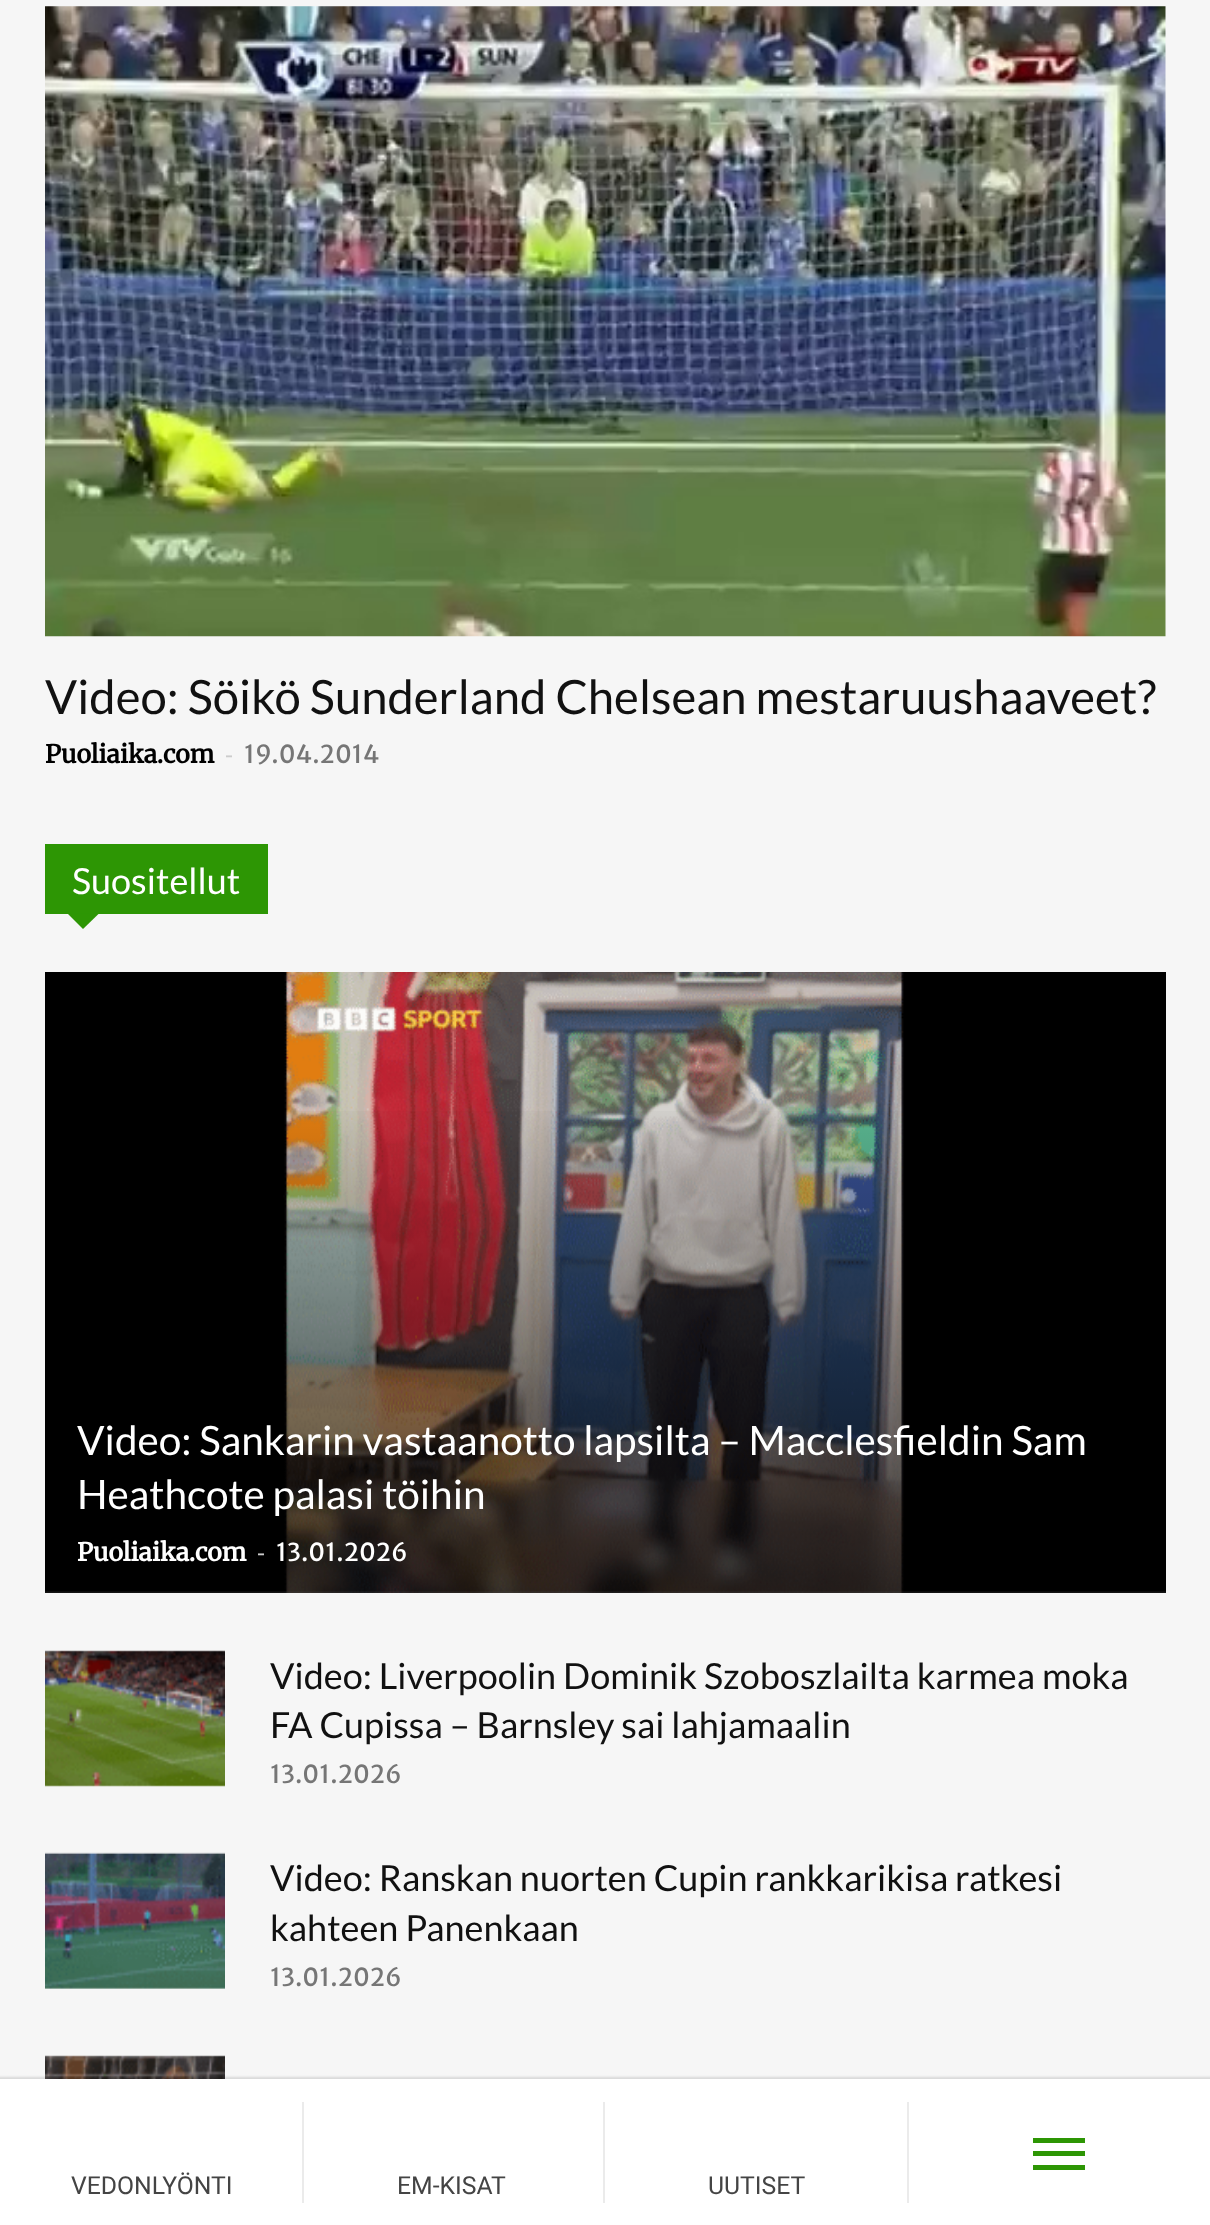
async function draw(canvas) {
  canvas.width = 1210;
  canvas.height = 2225;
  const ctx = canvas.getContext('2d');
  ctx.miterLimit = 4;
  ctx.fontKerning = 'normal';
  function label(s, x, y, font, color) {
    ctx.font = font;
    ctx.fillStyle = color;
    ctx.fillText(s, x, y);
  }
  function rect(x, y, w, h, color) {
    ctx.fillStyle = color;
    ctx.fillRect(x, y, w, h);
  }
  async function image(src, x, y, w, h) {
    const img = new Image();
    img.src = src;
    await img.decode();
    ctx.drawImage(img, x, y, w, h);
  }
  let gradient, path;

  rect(0, 0, 1210, 2225, '#f6f6f6');
  await image('assets/img1.png', 45, 6, 1121, 631);
  label('Video: Söikö Sunderland Chelsean mestaruushaaveet?', 45, 714, '47.25px Lato', '#111');
  label('Puoliaika.com', 45, 763, 'bold 24.75px Merriweather', '#000');
  label('-', 225, 763, '24.75px Open Sans', '#ccc');
  label('19.04.2014', 244, 763, '24.75px Merriweather Sans', '#767676');
  rect(45, 844, 223, 70, '#2d9604');
  label('Suositellut', 72, 894, '36px Lato', '#fff');
  ctx.fillStyle = '#2d9604';
  path = new Path2D('M67.5 913.5H99L83 929Z');
  ctx.fill(path);
  await image('assets/img2.png', 45, 972, 1121, 621);
  gradient = ctx.createLinearGradient(605, 1096, 605, 1593);
  gradient.addColorStop(0, '#00000000');
  gradient.addColorStop(1, '#000000b3');
  ctx.fillStyle = gradient;
  ctx.fillRect(45, 1111, 1121, 482);
  label('Video: Sankarin vastaanotto lapsilta – Macclesfieldin Sam', 77, 1455, '40.5px Lato', '#fff');
  label('Heathcote palasi töihin', 77, 1509, '40.5px Lato', '#fff');
  label('Puoliaika.com', 77, 1561, 'bold 24.75px Merriweather', '#fff');
  label('-', 257, 1561, '24.75px Open Sans', '#ccc');
  label('13.01.2026', 276, 1561, '24.75px Merriweather Sans', '#fff');
  await image('assets/img3.png', 45, 1650, 180, 137);
  label('Video: Liverpoolin Dominik Szoboszlailta karmea moka', 270, 1689, '36px Lato', '#111');
  label('FA Cupissa – Barnsley sai lahjamaalin', 270, 1738, '36px Lato', '#111');
  label('13.01.2026', 270, 1783, '24.75px Merriweather Sans', '#767676');
  await image('assets/img4.png', 45, 1852, 180, 137);
  label('Video: Ranskan nuorten Cupin rankkarikisa ratkesi', 270, 1891, '36px Lato', '#111');
  label('kahteen Panenkaan', 270, 1941, '36px Lato', '#111');
  label('13.01.2026', 270, 1986, '24.75px Merriweather Sans', '#767676');
  await image('assets/img5.png', 45, 2055, 180, 24);
  ctx.fillStyle = '#0000001f';
  ctx.filter = 'blur(1px)';
  ctx.beginPath();
  ctx.rect(-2, 2077, 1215, 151);
  ctx.fill();
  ctx.filter = 'none';
  rect(0, 2079, 1210, 146, '#fff');
  rect(1033, 2151, 52, 5, '#2d9604');
  rect(1033, 2138, 52, 5, '#2d9604');
  rect(1033, 2165, 52, 5, '#2d9604');
  label('VEDONLYÖNTI', 71, 2194, '24.75px Roboto', '#444');
  rect(302, 2102, 2, 101, '#ebebeb');
  label('EM-KISAT', 397, 2194, '24.75px Roboto', '#444');
  rect(603, 2102, 2, 101, '#ebebeb');
  label('UUTISET', 708, 2194, '24.75px Roboto', '#444');
  rect(907, 2102, 2, 101, '#ebebeb');
}

draw(document.querySelector('canvas'));
